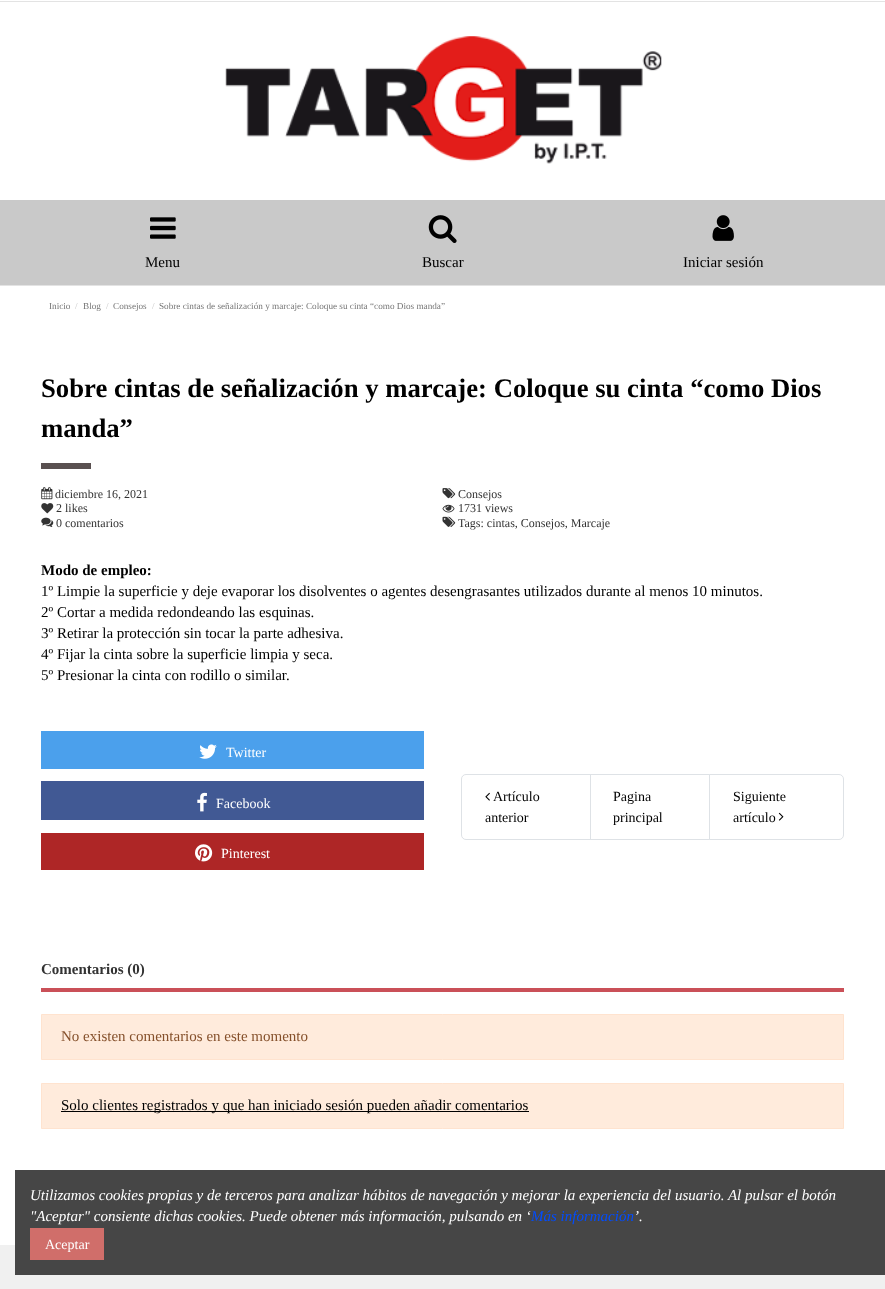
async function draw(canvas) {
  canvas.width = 885;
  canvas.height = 1289;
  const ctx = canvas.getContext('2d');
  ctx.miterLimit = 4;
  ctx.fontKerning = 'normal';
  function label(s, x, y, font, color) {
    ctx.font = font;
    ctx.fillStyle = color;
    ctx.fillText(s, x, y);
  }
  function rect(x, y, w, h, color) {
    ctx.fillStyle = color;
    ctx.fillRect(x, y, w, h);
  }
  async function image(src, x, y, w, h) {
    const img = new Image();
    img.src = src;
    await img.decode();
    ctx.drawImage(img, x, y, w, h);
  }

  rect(0, 0, 885, 1289, '#fff');
  rect(0, 1, 885, 1, '#e3e3e3');
  rect(0, 285, 885, 1, '#e3e3e3');
  await image('assets/img1.png', 225, 36, 437, 128);
  rect(0, 200, 885, 85, '#c9c9c9');
  await image('assets/img2.png', 150, 217, 26, 22);
  label('Menu', 145, 267, '15px Liberation Serif', '#000');
  await image('assets/img3.png', 428, 215, 29, 28);
  label('Buscar', 422, 267, '15px Liberation Serif', '#000');
  await image('assets/img4.png', 712, 215, 22, 26);
  label('Iniciar sesión', 683, 267, '15px Liberation Serif', '#000');
  label('Inicio', 49, 309, '9.2px Liberation Serif', '#757575');
  label('/', 75, 309, '9.2px Liberation Serif', '#c8c8c8');
  label('Blog', 83, 309, '9.2px Liberation Serif', '#757575');
  label('/', 106, 309, '9.2px Liberation Serif', '#c8c8c8');
  label('Consejos', 113, 309, '9.2px Liberation Serif', '#757575');
  label('/', 152, 309, '9.2px Liberation Serif', '#c8c8c8');
  label('Sobre cintas de señalización y marcaje: Coloque su cinta “como Dios manda”', 159, 309, '9.2px Liberation Serif', '#757575');
  label('Sobre cintas de señalización y marcaje: Coloque su cinta “como Dios', 41, 397, 'bold 26.7px Liberation Serif', '#000');
  label('manda”', 41, 437, 'bold 26.7px Liberation Serif', '#000');
  rect(41, 463, 50, 6, '#595050');
  await image('assets/img5.png', 41, 487, 12, 13);
  label('diciembre 16, 2021', 55, 498, '12px Liberation Serif', '#333');
  await image('assets/img6.png', 442, 488, 14, 11);
  label('Consejos', 458, 498, '12px Liberation Serif', '#333');
  await image('assets/img7.png', 41, 503, 13, 11);
  label('2 likes', 56, 512, '12px Liberation Serif', '#333');
  await image('assets/img8.png', 442, 504, 13, 9);
  label('1731 views', 458, 512, '12px Liberation Serif', '#333');
  await image('assets/img9.png', 41, 517, 13, 10);
  label('0 comentarios', 56, 527, '12px Liberation Serif', '#333');
  await image('assets/img10.png', 442, 516, 14, 11);
  label('Tags: cintas, Consejos, Marcaje', 458, 527, '12px Liberation Serif', '#333');
  label('Modo de empleo:', 41, 575, 'bold 15px Liberation Serif', '#000');
  label('1º Limpie la superficie y deje evaporar los disolventes o agentes desengrasantes utilizados durante al menos 10 minutos.', 41, 596, '15px Liberation Serif', '#000');
  label('2º Cortar a medida redondeando las esquinas.', 41, 617, '15px Liberation Serif', '#000');
  label('3º Retirar la protección sin tocar la parte adhesiva.', 41, 638, '15px Liberation Serif', '#000');
  label('4º Fijar la cinta sobre la superficie limpia y seca.', 41, 659, '15px Liberation Serif', '#000');
  label('5º Presionar la cinta con rodillo o similar.', 41, 680, '15px Liberation Serif', '#000');
  rect(41, 731, 383, 38, '#4ba0ec');
  await image('assets/img11.png', 199, 744, 18, 15);
  label('Twitter', 226, 757, '14px Liberation Serif', '#fff');
  rect(41, 781, 383, 39, '#415994');
  await image('assets/img12.png', 197, 792, 10, 20);
  label('Facebook', 216, 808, '14px Liberation Serif', '#fff');
  rect(41, 833, 383, 37, '#ae2626');
  await image('assets/img13.png', 195, 844, 18, 18);
  label('Pinterest', 221, 858, '14px Liberation Serif', '#fff');
  ctx.beginPath();
  ctx.roundRect(461.5, 774.5, 129, 65, [4.5, 0, 0, 4.5]);
  ctx.strokeStyle = '#dee2e6';
  ctx.stroke();
  await image('assets/img14.png', 485, 792, 5, 9);
  label('Artículo', 493, 801, '14px Liberation Serif', '#000');
  label('anterior', 485, 822, '14px Liberation Serif', '#000');
  ctx.strokeRect(590.5, 774.5, 119, 65);
  label('Pagina', 613, 801, '14px Liberation Serif', '#000');
  label('principal', 613, 822, '14px Liberation Serif', '#000');
  ctx.fillStyle = '#fff';
  ctx.beginPath();
  ctx.roundRect(709.5, 774.5, 134, 65, [0, 4.5, 4.5, 0]);
  ctx.fill();
  ctx.stroke();
  label('Siguiente', 733, 801, '14px Liberation Serif', '#000');
  label('artículo', 733, 822, '14px Liberation Serif', '#000');
  await image('assets/img15.png', 778, 812, 6, 9);
  rect(41, 988, 803, 4, '#ca5058');
  label('Comentarios (0)', 41, 974, 'bold 15px Liberation Serif', '#333');
  ctx.fillStyle = '#ffebdc';
  ctx.beginPath();
  ctx.rect(41.5, 1014.5, 802, 45);
  ctx.fill();
  ctx.strokeStyle = '#ffe3cf';
  ctx.stroke();
  label('No existen comentarios en este momento', 61, 1041, '15px Liberation Serif', '#85502b');
  ctx.fillStyle = '#ffebdc';
  ctx.beginPath();
  ctx.rect(41.5, 1083.5, 802, 45);
  ctx.fill();
  ctx.stroke();
  rect(61, 1111, 468, 1, '#000');
  label('Solo clientes registrados y que han iniciado sesión pueden añadir comentarios', 61, 1110, '15px Liberation Serif', '#000');
  rect(0, 1245, 885, 44, '#f0f0f0');
  rect(15, 1170, 870, 105, '#464646');
  label('Utilizamos cookies propias y de terceros para analizar hábitos de navegación y mejorar la experiencia del usuario. Al pulsar el botón', 30, 1200, 'italic 15px Liberation Serif', '#fff');
  label('"Aceptar" consiente dichas cookies. Puede obtener más información, pulsando en ‘', 30, 1221, 'italic 15px Liberation Serif', '#fff');
  label('Más información', 531, 1221, 'italic 15px Liberation Serif', '#004cff');
  label('’.', 634, 1221, 'italic 15px Liberation Serif', '#fff');
  rect(30, 1228, 74, 32, '#d06e6a');
  label('Aceptar', 45, 1249, '14px Liberation Serif', '#fff');
}

draw(document.querySelector('canvas'));
